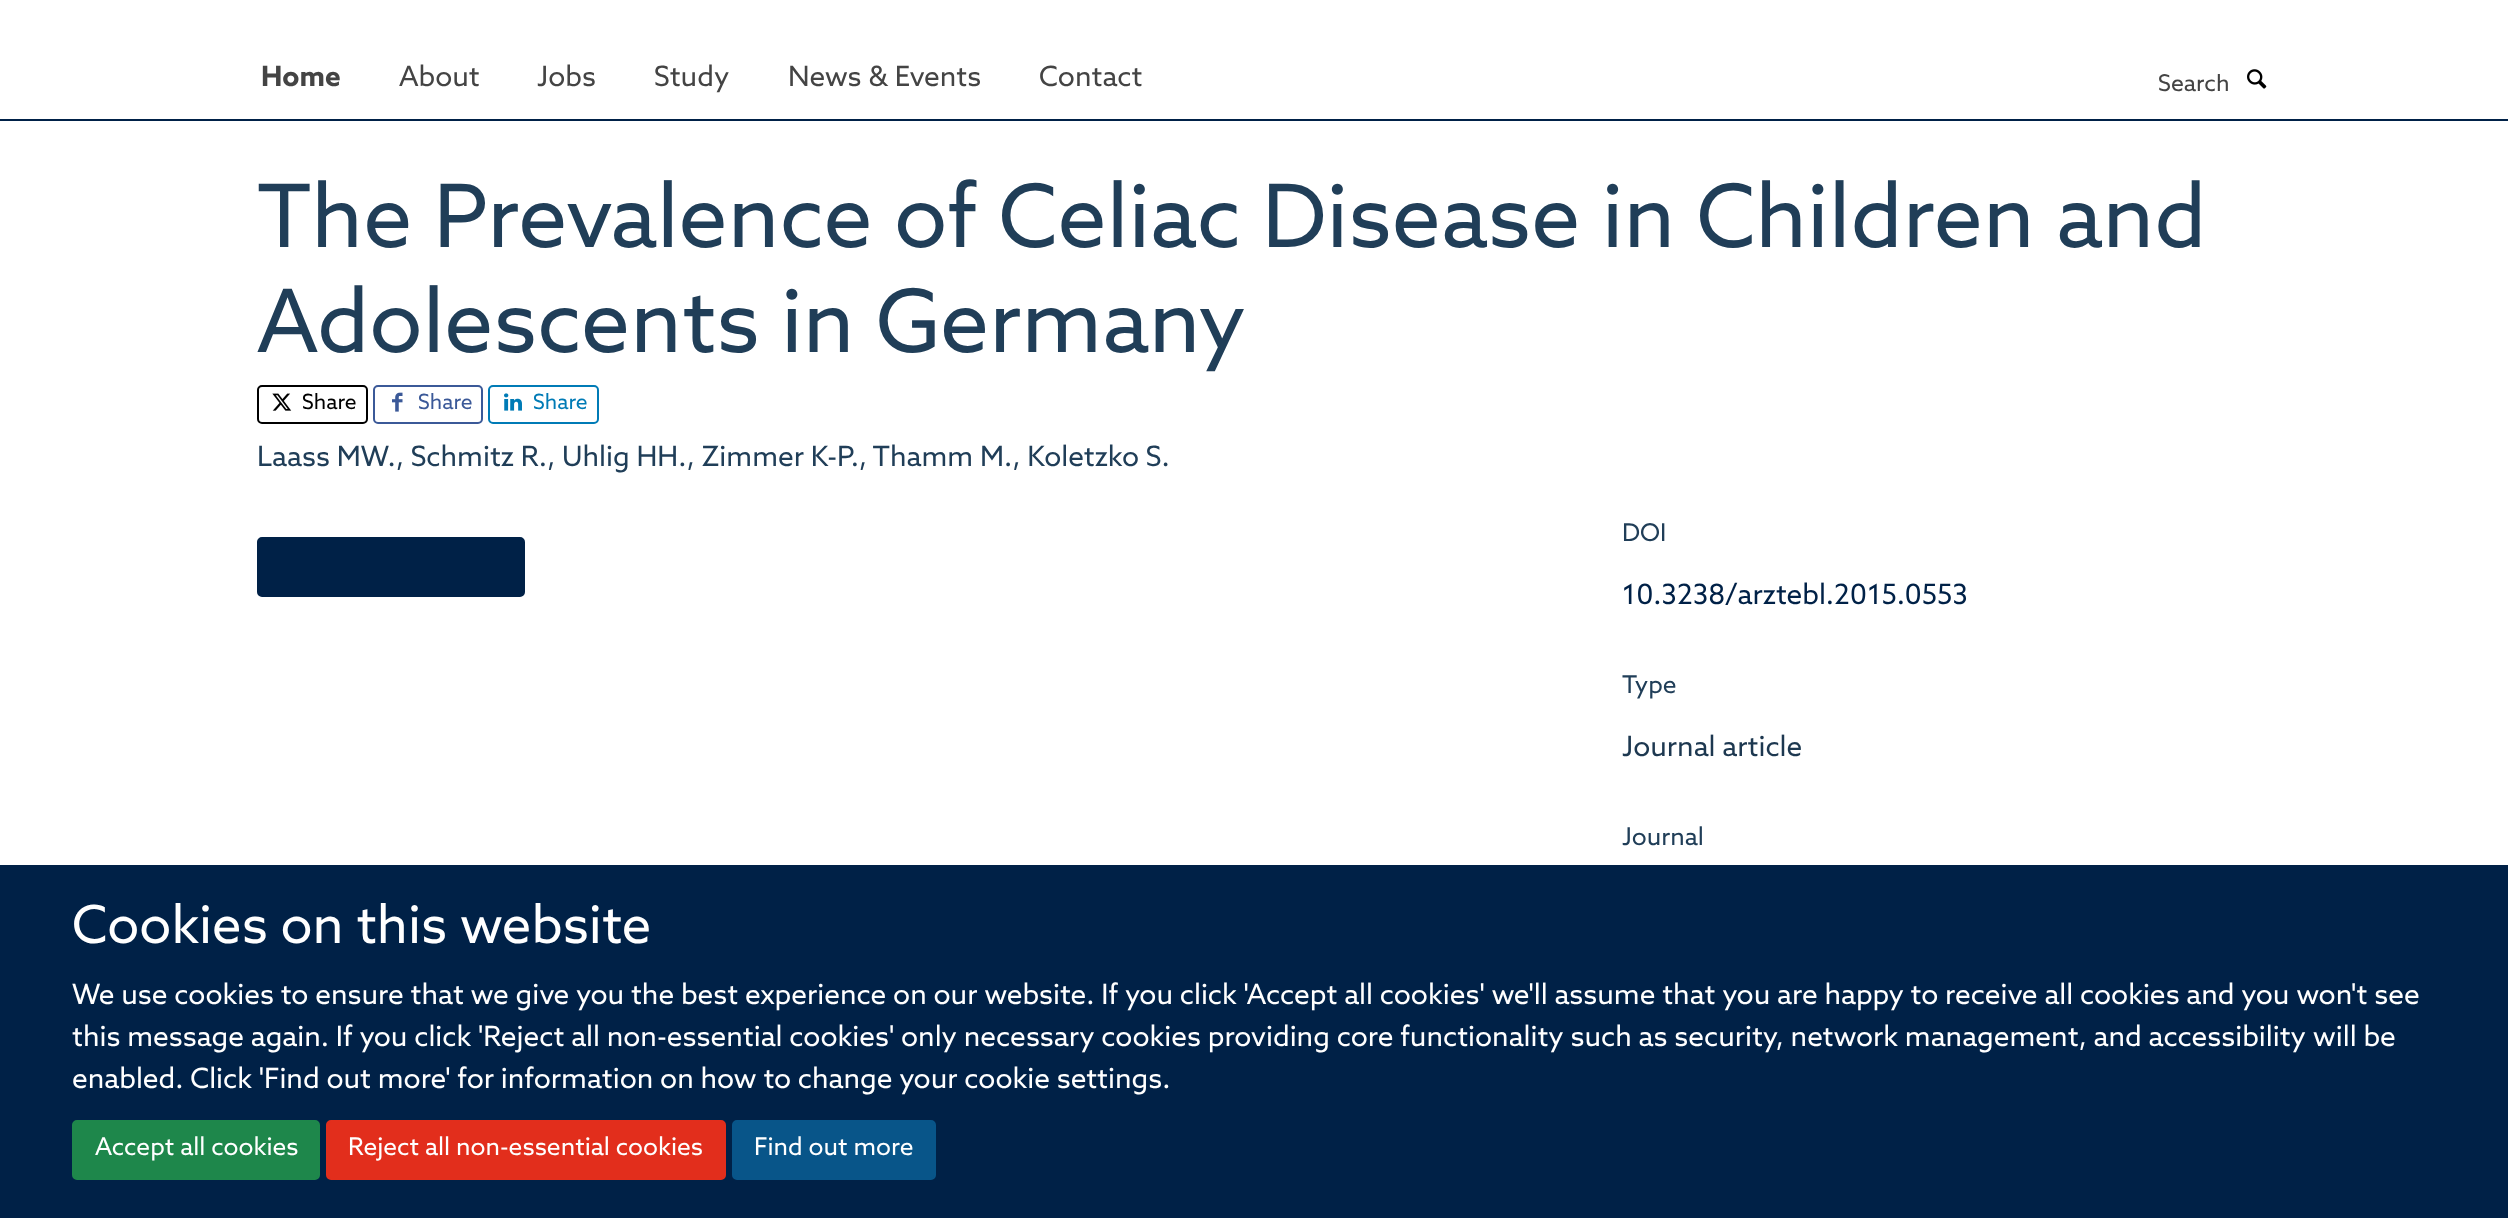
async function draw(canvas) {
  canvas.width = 2508;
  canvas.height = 1218;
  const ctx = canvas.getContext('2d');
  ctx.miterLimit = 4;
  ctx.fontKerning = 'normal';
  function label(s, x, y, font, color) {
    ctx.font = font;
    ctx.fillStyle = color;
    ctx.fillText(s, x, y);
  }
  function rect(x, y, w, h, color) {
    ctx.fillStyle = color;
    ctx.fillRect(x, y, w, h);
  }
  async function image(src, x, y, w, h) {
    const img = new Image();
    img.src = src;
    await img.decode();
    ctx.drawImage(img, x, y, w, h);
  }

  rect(0, 0, 2508, 1218, '#fff');
  rect(0, 119, 2508, 2, '#002147');
  label('Home', 261, 86, 'bold 28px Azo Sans', '#444');
  label('About', 399, 86, '28px Azo Sans', '#444');
  label('Jobs', 537, 86, '28px Azo Sans', '#444');
  label('Study', 654, 86, '28px Azo Sans', '#444');
  label('News & Events', 788, 86, '28px Azo Sans', '#444');
  label('Contact', 1039, 86, '28px Azo Sans', '#444');
  ctx.save();
  ctx.beginPath();
  ctx.rect(1990, 74, 238, 22);
  ctx.clip();
  label('Search', 2158, 91, '23px Azo Sans', '#444');
  ctx.restore();
  await image('assets/img1.png', 2247, 69, 20, 20);
  label('The Prevalence of Celiac Disease in Children and', 257, 247, '87.5px Azo Sans', '#203e58');
  label('Adolescents in Germany', 257, 352, '87.5px Azo Sans', '#203e58');
  ctx.beginPath();
  ctx.roundRect(258, 386, 109, 37, 4);
  ctx.strokeStyle = '#000';
  ctx.lineWidth = 2;
  ctx.stroke();
  await image('assets/img2.png', 272, 393, 20, 18);
  label('Share', 302, 409, '21px Azo Sans', '#000');
  ctx.beginPath();
  ctx.roundRect(374, 386, 108, 37, 4);
  ctx.strokeStyle = '#3b5998';
  ctx.stroke();
  await image('assets/img3.png', 392, 392, 11, 20);
  label('Share', 418, 409, '21px Azo Sans', '#3b5998');
  ctx.beginPath();
  ctx.roundRect(489, 386, 109, 37, 4);
  ctx.strokeStyle = '#007bb6';
  ctx.stroke();
  await image('assets/img4.png', 504, 393, 18, 18);
  label('Share', 533, 409, '21px Azo Sans', '#007bb6');
  label('Laass MW., Schmitz R., Uhlig HH., Zimmer K-P., Thamm M., Koletzko S.', 257, 466, '28px Azo Sans', '#203e58');
  ctx.fillStyle = '#002147';
  ctx.beginPath();
  ctx.roundRect(258, 538, 266, 58, 4);
  ctx.fill();
  ctx.strokeStyle = '#002147';
  ctx.stroke();
  label('DOI', 1622, 541, '24.5px Azo Sans', '#203e58');
  label('10.3238/arztebl.2015.0553', 1622, 604, '28px Azo Sans', '#002147');
  label('Type', 1622, 693, '24.5px Azo Sans', '#203e58');
  label('Journal article', 1622, 756, '28px Azo Sans', '#1d3850');
  label('Journal', 1622, 845, '24.5px Azo Sans', '#203e58');
  rect(0, 865, 2508, 353, '#002147');
  label('Cookies on this website', 72, 943, '52.5px Azo Sans', '#fff');
  label('We use cookies to ensure that we give you the best experience on our website. If you click \'Accept all cookies\' we\'ll assume that you are happy to receive all cookies and you won\'t see', 72, 1004, '28px Azo Sans', '#fff');
  label('this message again. If you click \'Reject all non-essential cookies\' only necessary cookies providing core functionality such as security, network management, and accessibility will be', 72, 1046, '28px Azo Sans', '#fff');
  label('enabled. Click \'Find out more\' for information on how to change your cookie settings.', 72, 1088, '28px Azo Sans', '#fff');
  ctx.fillStyle = '#1e874b';
  ctx.beginPath();
  ctx.roundRect(73, 1121, 246, 58, 4);
  ctx.fill();
  ctx.strokeStyle = '#1e874b';
  ctx.stroke();
  label('Accept all cookies', 95, 1155, '24.5px Azo Sans', '#fff');
  ctx.fillStyle = '#e22e1c';
  ctx.beginPath();
  ctx.roundRect(327, 1121, 398, 58, 4);
  ctx.fill();
  ctx.strokeStyle = '#e22e1c';
  ctx.stroke();
  label('Reject all non-essential cookies', 348, 1155, '24.5px Azo Sans', '#fff');
  ctx.fillStyle = '#085589';
  ctx.beginPath();
  ctx.roundRect(733, 1121, 202, 58, 4);
  ctx.fill();
  ctx.strokeStyle = '#085589';
  ctx.stroke();
  label('Find out more', 754, 1155, '24.5px Azo Sans', '#fff');
}

draw(document.querySelector('canvas'));
